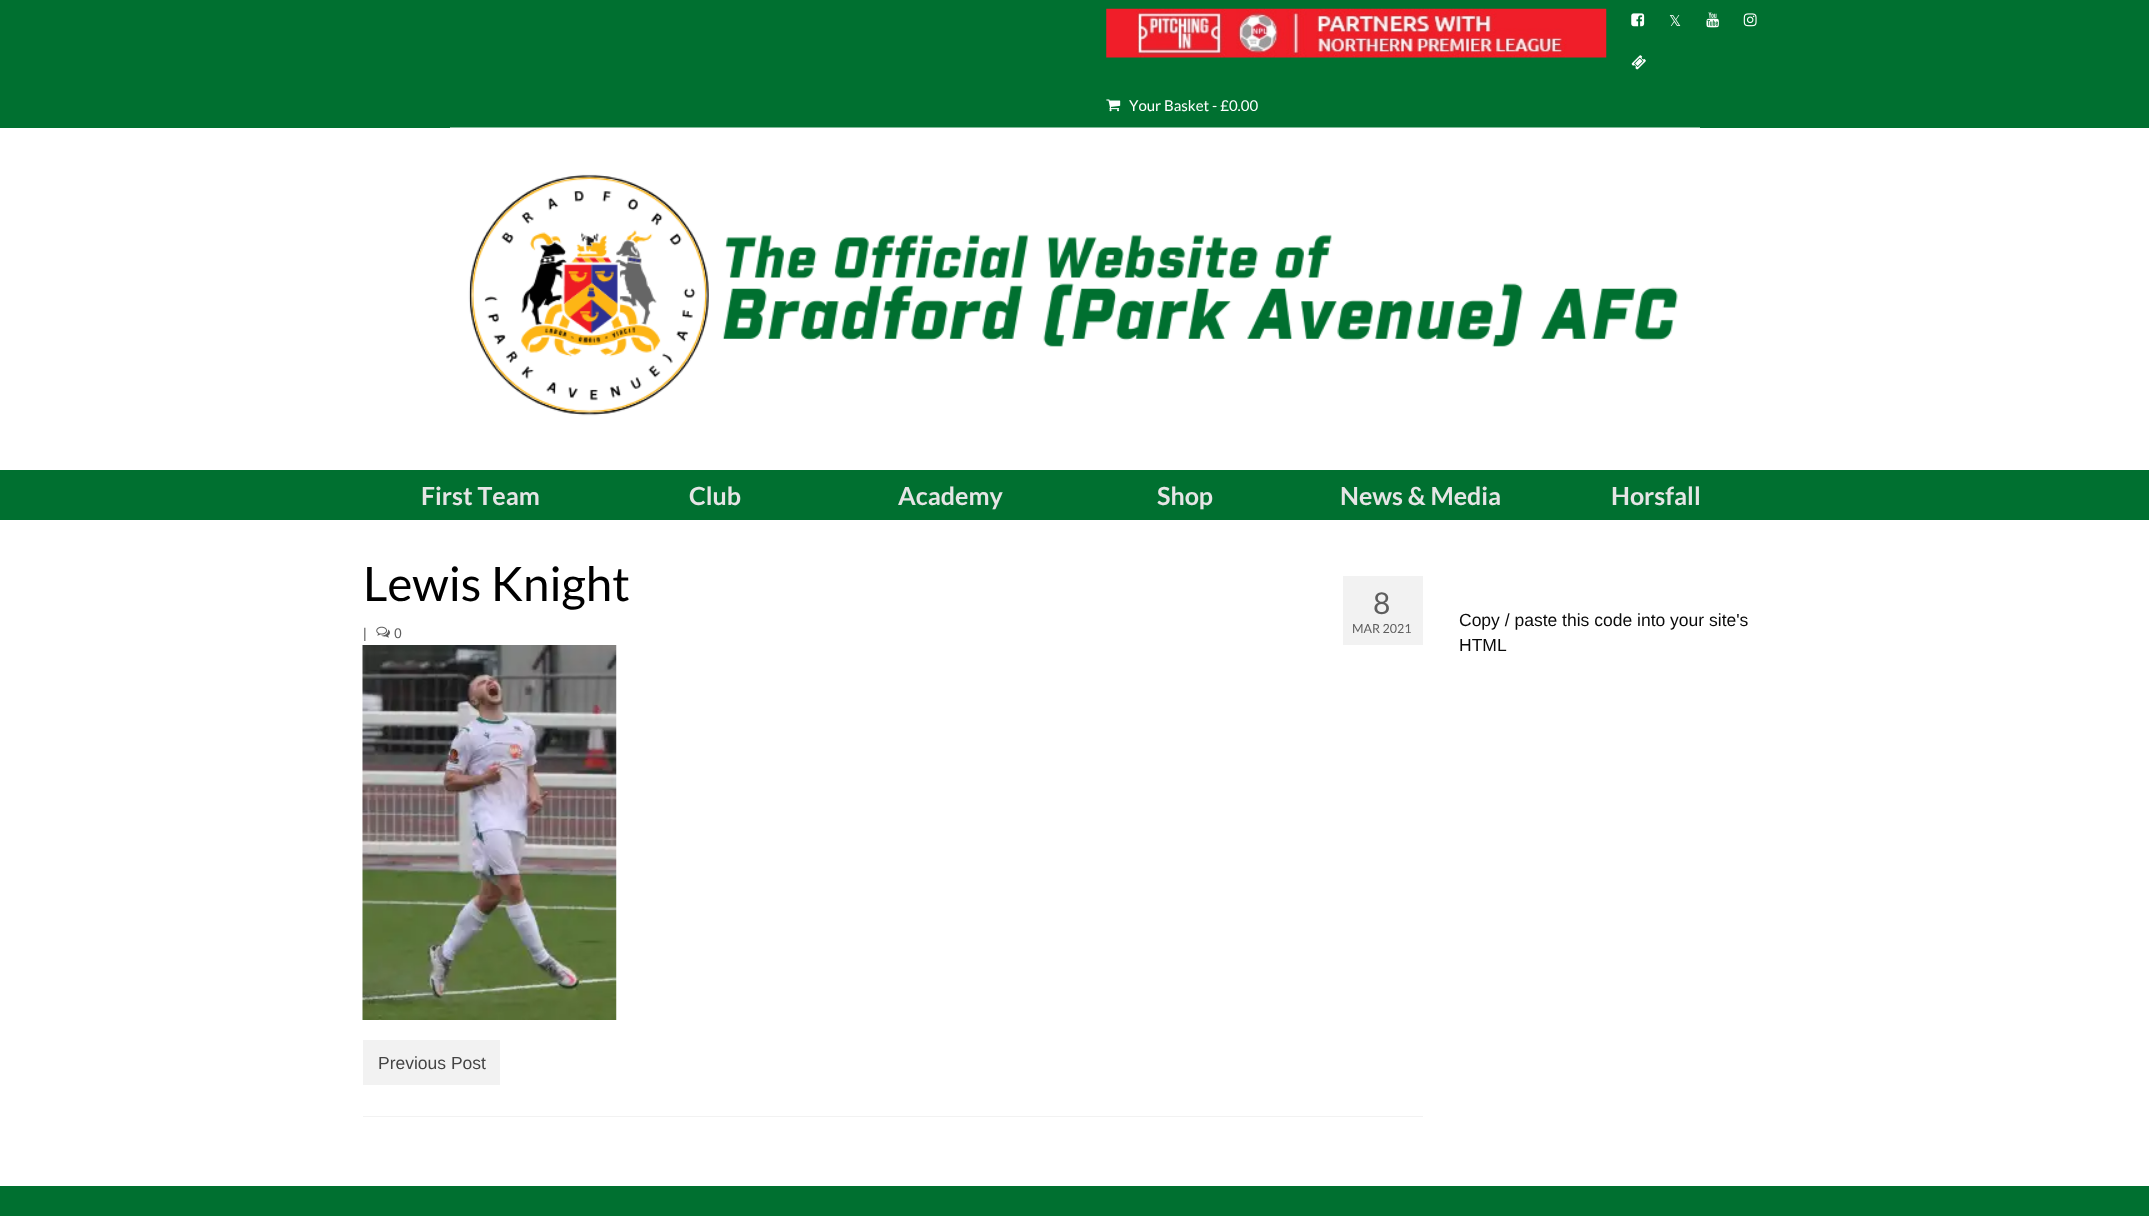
async function draw(canvas) {
  canvas.width = 2149;
  canvas.height = 1216;
  const ctx = canvas.getContext('2d');
  ctx.miterLimit = 4;
  ctx.fontKerning = 'none';
  function label(s, x, y, font, color) {
    ctx.font = font;
    ctx.fillStyle = color;
    ctx.fillText(s, x, y);
  }
  function rect(x, y, w, h, color) {
    ctx.fillStyle = color;
    ctx.fillRect(x, y, w, h);
  }
  async function image(src, x, y, w, h) {
    const img = new Image();
    img.src = src;
    await img.decode();
    ctx.drawImage(img, x, y, w, h);
  }

  rect(0, 0, 2149, 1216, '#fff');
  rect(0, 0, 2149, 128, '#007030');
  await image('assets/img1.png', 1106, 8, 501, 50);
  await image('assets/img2.png', 1631, 13, 14, 14);
  label('𝕏', 1669, 26, '15px DejaVu Sans', '#fff');
  await image('assets/img3.png', 1706, 12, 13, 16);
  await image('assets/img4.png', 1743, 13, 14, 14);
  await image('assets/img5.png', 1631, 55, 15, 15);
  await image('assets/img6.png', 1106, 99, 15, 13);
  label('Your Basket - £0.00', 1129, 111, '15px Lato', '#fff');
  await image('assets/img7.png', 450, 127, 1250, 289);
  rect(0, 470, 2149, 50, '#007030');
  label('First Team', 421, 505, 'bold 25px Lato', '#e5e5e5');
  label('Club', 689, 505, 'bold 25px Lato', '#e5e5e5');
  label('Academy', 898, 505, 'bold 25px Lato', '#e5e5e5');
  label('Shop', 1157, 505, 'bold 25px Lato', '#e5e5e5');
  label('News & Media', 1340, 505, 'bold 25px Lato', '#e5e5e5');
  label('Horsfall', 1611, 505, 'bold 25px Lato', '#e5e5e5');
  label('Lewis Knight', 363, 601, '47.5px Lato', '#000');
  label('|', 363, 638, '14px Liberation Sans', '#5e5e5e');
  await image('assets/img8.png', 376, 626, 14, 12);
  label('0', 394, 638, '14px Liberation Sans', '#5e5e5e');
  rect(1343, 576, 80, 69, '#f2f2f2');
  label('8', 1373, 614, '30px Lato', '#5e5e5e');
  label('MAR 2021', 1352, 633, '12.5px Lato', '#5e5e5e');
  await image('assets/img9.png', 362, 645, 255, 375);
  rect(363, 1116, 1060, 1, '#f2f2f2');
  rect(363, 1040, 137, 45, '#f2f2f2');
  label('Previous Post', 378, 1069, '17.5px Liberation Sans', '#444');
  label('Copy / paste this code into your site\'s', 1459, 626, '17.5px Liberation Sans', '#0a0a0a');
  label('HTML', 1459, 651, '17.5px Liberation Sans', '#0a0a0a');
  rect(0, 1186, 2149, 30, '#007030');
}

draw(document.querySelector('canvas'));
